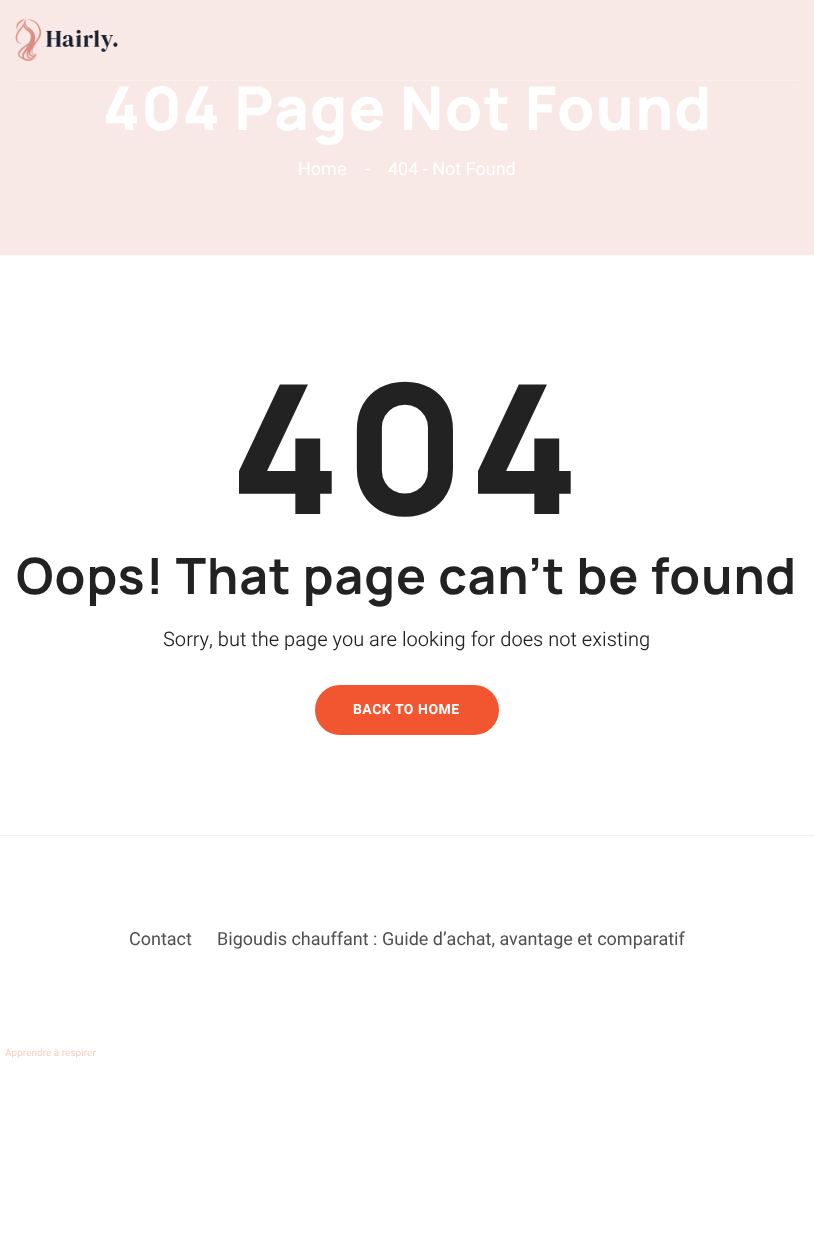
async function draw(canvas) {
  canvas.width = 814;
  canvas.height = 1245;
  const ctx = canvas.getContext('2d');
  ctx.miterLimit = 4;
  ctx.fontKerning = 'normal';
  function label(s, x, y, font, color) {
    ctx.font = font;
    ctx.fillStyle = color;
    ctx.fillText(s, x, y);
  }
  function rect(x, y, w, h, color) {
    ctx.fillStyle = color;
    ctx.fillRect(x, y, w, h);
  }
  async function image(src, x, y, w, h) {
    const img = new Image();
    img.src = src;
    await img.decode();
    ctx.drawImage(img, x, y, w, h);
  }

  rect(0, 0, 814, 1245, '#fff');
  rect(0, 0, 814, 255, '#f8e9e7');
  rect(15, 80, 784, 1, '#faf0ee');
  await image('assets/img1.png', 15, 19, 103, 42);
  ctx.letterSpacing = '1.25px';
  label('404 Page Not Found', 103, 130, '800 60px Manrope', '#fff');
  ctx.letterSpacing = '0px';
  label('Home', 298, 175, '18px Heebo', '#fff');
  label('-', 365, 175, '18px Heebo', '#fff');
  label('404 - Not Found', 388, 175, '18px Heebo', '#fff');
  ctx.letterSpacing = '3.5px';
  label('404', 230, 514, '800 180px Manrope', '#222');
  ctx.letterSpacing = '1px';
  label('Oops! That page can’t be found', 16, 594, 'bold 50px Manrope', '#222');
  ctx.letterSpacing = '0px';
  label('Sorry, but the page you are looking for does not existing', 163, 646, '300 20px Heebo', '#222');
  ctx.fillStyle = '#f25630';
  ctx.beginPath();
  ctx.roundRect(316, 686, 182, 48, 24);
  ctx.fill();
  ctx.strokeStyle = '#f25630';
  ctx.lineWidth = 2;
  ctx.stroke();
  ctx.letterSpacing = '0.5px';
  label('BACK TO HOME', 353, 714, 'bold 14px Heebo', '#fff');
  rect(0, 835, 814, 1, '#ededed');
  ctx.letterSpacing = '0px';
  label('Contact', 129, 945, '18px Heebo', '#505050');
  label('Bigoudis chauffant : Guide d’achat, avantage et comparatif', 217, 945, '18px Heebo', '#505050');
  label('Apprendre à respirer', 5, 1056, '10px Heebo', '#fbccc1');
}

draw(document.querySelector('canvas'));
